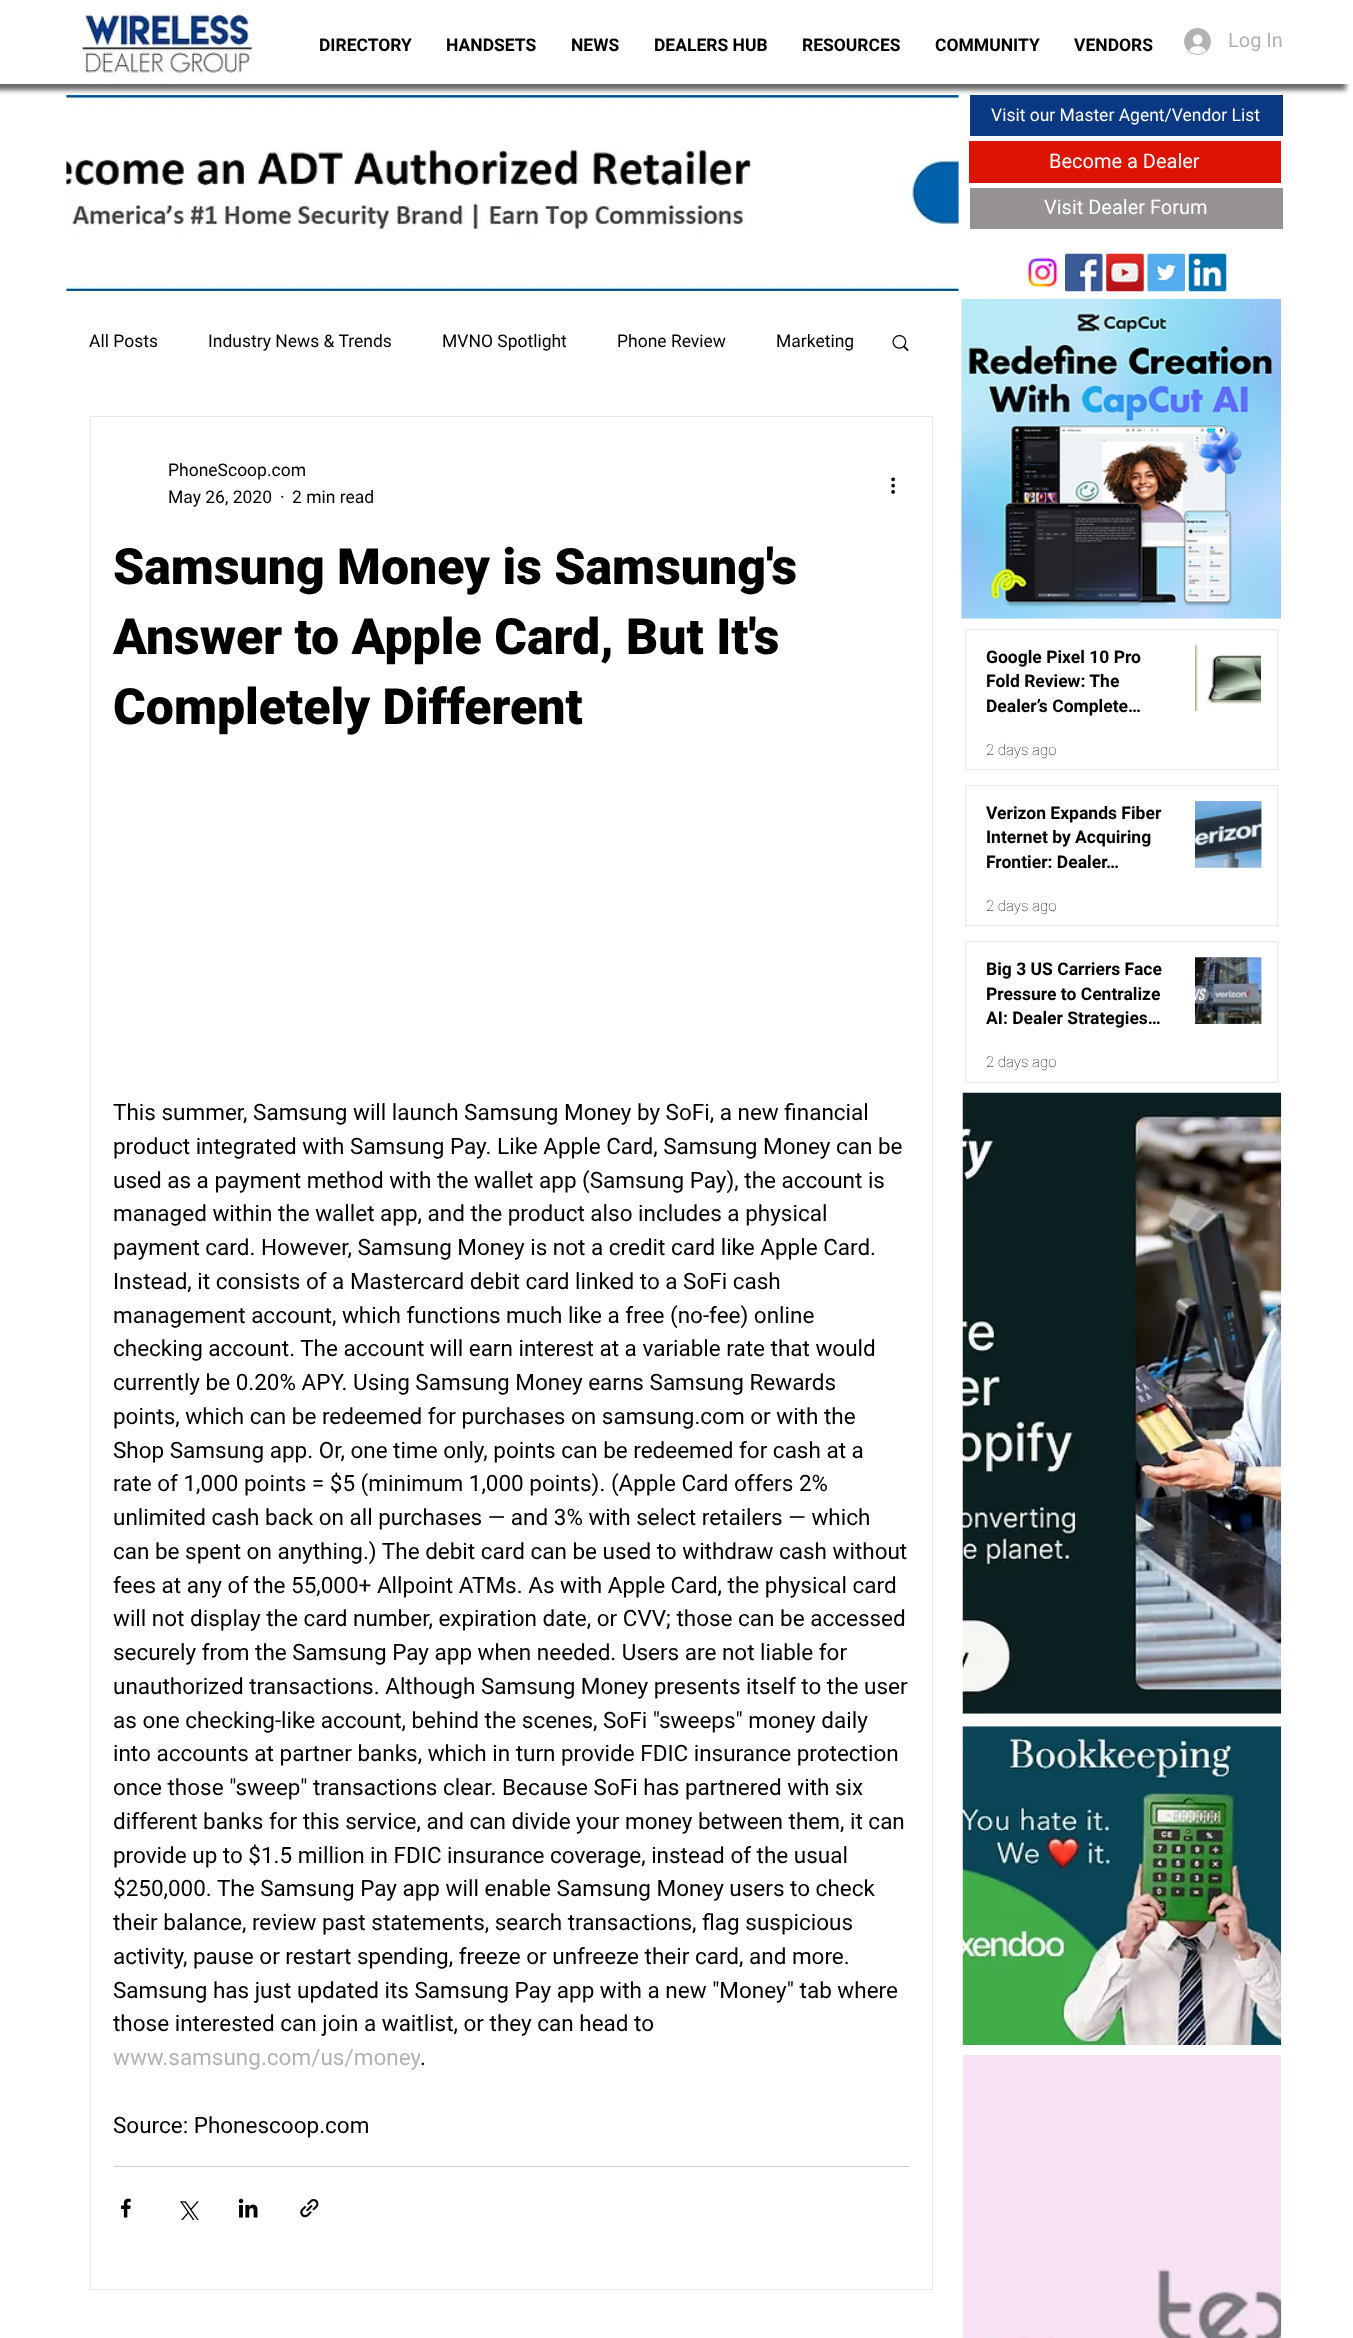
async function draw(canvas) {
  canvas.width = 1353;
  canvas.height = 2338;
  const ctx = canvas.getContext('2d');
  ctx.miterLimit = 4;
  ctx.fontKerning = 'normal';
  function label(s, x, y, font, color) {
    ctx.font = font;
    ctx.fillStyle = color;
    ctx.fillText(s, x, y);
  }
  function rect(x, y, w, h, color) {
    ctx.fillStyle = color;
    ctx.fillRect(x, y, w, h);
  }
  async function image(src, x, y, w, h) {
    const img = new Image();
    img.src = src;
    await img.decode();
    ctx.drawImage(img, x, y, w, h);
  }
  let path;

  rect(0, 0, 1353, 2338, '#fff');
  ctx.save();
  path = new Path2D('M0 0H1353V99H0ZM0 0H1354V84H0Z');
  ctx.clip(path, 'evenodd');
  ctx.fillStyle = '#00000099';
  ctx.filter = 'blur(2.5px)';
  ctx.beginPath();
  ctx.rect(-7, 6, 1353, 84);
  ctx.fill();
  ctx.filter = 'none';
  ctx.restore();
  await image('assets/img1.png', 77, 6, 181, 78);
  label('DIRECTORY', 319, 51, 'bold 17.5px Roboto', '#000');
  label('HANDSETS', 446, 51, 'bold 17.5px Roboto', '#000');
  label('NEWS', 571, 51, 'bold 17.5px Roboto', '#000');
  label('DEALERS HUB', 654, 51, 'bold 17.5px Roboto', '#000');
  label('RESOURCES', 802, 51, 'bold 17.5px Roboto', '#000');
  label('COMMUNITY', 935, 51, 'bold 17.5px Roboto', '#000');
  label('VENDORS', 1074, 51, 'bold 17.5px Roboto', '#000');
  await image('assets/img2.png', 1184, 28, 27, 27);
  label('Log In', 1228, 47, '20px Roboto', '#b3b2b0');
  await image('assets/img3.png', 66, 95, 893, 197);
  rect(970, 95, 313, 41, '#0a3883');
  label('Visit our Master Agent/Vendor List', 991, 121, '17.5px Roboto', '#fff');
  rect(969, 141, 312, 42, '#de1402');
  label('Become a Dealer', 1049, 168, '20px Roboto', '#fff');
  rect(970, 188, 313, 41, '#979393');
  label('Visit Dealer Forum', 1044, 214, '20px Roboto', '#fff');
  await image('assets/img4.png', 1027, 257, 31, 31);
  await image('assets/img5.png', 1065, 253, 38, 39);
  await image('assets/img6.png', 1106, 253, 38, 39);
  await image('assets/img7.png', 1147, 253, 38, 39);
  await image('assets/img8.png', 1188, 253, 39, 39);
  rect(66, 291, 892, 1, '#fff');
  label('All Posts', 89, 347, '17.5px Roboto', '#000');
  label('Industry News & Trends', 208, 347, '17.5px Roboto', '#000');
  label('MVNO Spotlight', 442, 347, '17.5px Roboto', '#000');
  label('Phone Review', 617, 347, '17.5px Roboto', '#000');
  label('Marketing', 776, 347, '17.5px Roboto', '#000');
  await image('assets/img9.png', 892, 335, 17, 17);
  ctx.strokeStyle = '#e9e7e7';
  ctx.strokeRect(90.5, 416.5, 842, 1873);
  label('PhoneScoop.com', 168, 476, '17.5px Roboto', '#000');
  label('May 26, 2020', 168, 503, '17.5px Roboto', '#000');
  label('·', 280, 503, '17.5px Roboto', '#000');
  label('2 min read', 292, 503, '17.5px Roboto', '#000');
  await image('assets/img10.png', 891, 477, 4, 17);
  label('Samsung Money is Samsung\'s', 113, 584, '900 50px Roboto', '#000');
  label('Answer to Apple Card, But It\'s', 113, 654, '900 50px Roboto', '#000');
  label('Completely Different', 113, 724, '900 50px Roboto', '#000');
  label('This summer, Samsung will launch Samsung Money by SoFi, a new financial', 113, 1120, '22.5px Roboto', '#000');
  label('product integrated with Samsung Pay. Like Apple Card, Samsung Money can be', 113, 1154, '22.5px Roboto', '#000');
  label('used as a payment method with the wallet app (Samsung Pay), the account is', 113, 1188, '22.5px Roboto', '#000');
  label('managed within the wallet app, and the product also includes a physical', 113, 1221, '22.5px Roboto', '#000');
  label('payment card. However, Samsung Money is not a credit card like Apple Card.', 113, 1255, '22.5px Roboto', '#000');
  label('Instead, it consists of a Mastercard debit card linked to a SoFi cash', 113, 1289, '22.5px Roboto', '#000');
  label('management account, which functions much like a free (no-fee) online', 113, 1323, '22.5px Roboto', '#000');
  label('checking account. The account will earn interest at a variable rate that would', 113, 1356, '22.5px Roboto', '#000');
  label('currently be 0.20% APY. Using Samsung Money earns Samsung Rewards', 113, 1390, '22.5px Roboto', '#000');
  label('points, which can be redeemed for purchases on samsung.com or with the', 113, 1424, '22.5px Roboto', '#000');
  label('Shop Samsung app. Or, one time only, points can be redeemed for cash at a', 113, 1458, '22.5px Roboto', '#000');
  label('rate of 1,000 points = $5 (minimum 1,000 points). (Apple Card offers 2%', 113, 1491, '22.5px Roboto', '#000');
  label('unlimited cash back on all purchases — and 3% with select retailers — which', 113, 1525, '22.5px Roboto', '#000');
  label('can be spent on anything.) The debit card can be used to withdraw cash without', 113, 1559, '22.5px Roboto', '#000');
  label('fees at any of the 55,000+ Allpoint ATMs. As with Apple Card, the physical card', 113, 1593, '22.5px Roboto', '#000');
  label('will not display the card number, expiration date, or CVV; those can be accessed', 113, 1626, '22.5px Roboto', '#000');
  label('securely from the Samsung Pay app when needed. Users are not liable for', 113, 1660, '22.5px Roboto', '#000');
  label('unauthorized transactions. Although Samsung Money presents itself to the user', 113, 1694, '22.5px Roboto', '#000');
  label('as one checking-like account, behind the scenes, SoFi "sweeps" money daily', 113, 1728, '22.5px Roboto', '#000');
  label('into accounts at partner banks, which in turn provide FDIC insurance protection', 113, 1761, '22.5px Roboto', '#000');
  label('once those "sweep" transactions clear. Because SoFi has partnered with six', 113, 1795, '22.5px Roboto', '#000');
  label('different banks for this service, and can divide your money between them, it can', 113, 1829, '22.5px Roboto', '#000');
  label('provide up to $1.5 million in FDIC insurance coverage, instead of the usual', 113, 1863, '22.5px Roboto', '#000');
  label('$250,000. The Samsung Pay app will enable Samsung Money users to check', 113, 1896, '22.5px Roboto', '#000');
  label('their balance, review past statements, search transactions, flag suspicious', 113, 1930, '22.5px Roboto', '#000');
  label('activity, pause or restart spending, freeze or unfreeze their card, and more.', 113, 1964, '22.5px Roboto', '#000');
  label('Samsung has just updated its Samsung Pay app with a new "Money" tab where', 113, 1998, '22.5px Roboto', '#000');
  label('those interested can join a waitlist, or they can head to', 113, 2031, '22.5px Roboto', '#000');
  label('www.samsung.com/us/money', 113, 2065, '22.5px Roboto', '#b3b2b0');
  label('.', 420, 2065, '22.5px Roboto', '#000');
  rect(420, 2053, 1, 3, '#fff');
  label('Source: Phonescoop.com', 113, 2133, '22.5px Roboto', '#000');
  rect(114, 2166, 795, 1, '#cdcdcd');
  await image('assets/img11.png', 121, 2198, 10, 20);
  await image('assets/img12.png', 180, 2201, 19, 19);
  await image('assets/img13.png', 238, 2198, 20, 20);
  await image('assets/img14.png', 300, 2199, 19, 19);
  await image('assets/img15.png', 961, 298, 321, 321);
  ctx.strokeRect(965.5, 629.5, 312, 140);
  label('Google Pixel 10 Pro', 986, 663, 'bold 17.5px Roboto', '#000');
  label('Fold Review: The', 986, 687, 'bold 17.5px Roboto', '#000');
  label('Dealer’s Complete…', 986, 712, 'bold 17.5px Roboto', '#000');
  label('2 days ago', 986, 755, '100 15px Roboto', '#000');
  await image('assets/img16.png', 1195, 645, 66, 66);
  ctx.strokeRect(965.5, 785.5, 312, 140);
  label('Verizon Expands Fiber', 986, 819, 'bold 17.5px Roboto', '#000');
  label('Internet by Acquiring', 986, 843, 'bold 17.5px Roboto', '#000');
  label('Frontier: Dealer…', 986, 868, 'bold 17.5px Roboto', '#000');
  label('2 days ago', 986, 911, '100 15px Roboto', '#000');
  await image('assets/img17.png', 1195, 801, 67, 67);
  await image('assets/img18.png', 1195, 801, 67, 67);
  ctx.strokeRect(965.5, 941.5, 312, 141);
  label('Big 3 US Carriers Face', 986, 975, 'bold 17.5px Roboto', '#000');
  label('Pressure to Centralize', 986, 1000, 'bold 17.5px Roboto', '#000');
  label('AI: Dealer Strategies…', 986, 1024, 'bold 17.5px Roboto', '#000');
  label('2 days ago', 986, 1067, '100 15px Roboto', '#000');
  await image('assets/img19.png', 1195, 957, 67, 67);
  await image('assets/img20.png', 1195, 957, 67, 67);
  await image('assets/img21.png', 962, 1092, 320, 622);
  await image('assets/img22.png', 962, 1726, 320, 319);
  await image('assets/img23.png', 962, 2055, 320, 283);
}

draw(document.querySelector('canvas'));
